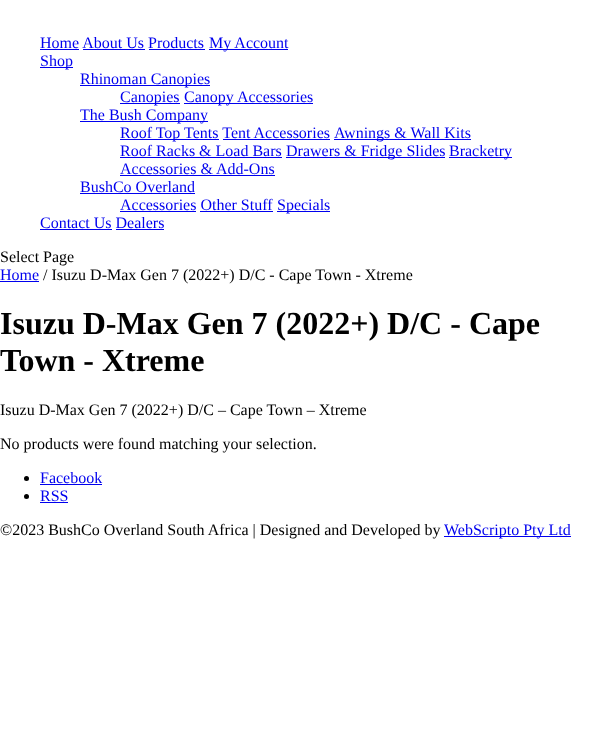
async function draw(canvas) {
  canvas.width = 590;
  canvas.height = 751;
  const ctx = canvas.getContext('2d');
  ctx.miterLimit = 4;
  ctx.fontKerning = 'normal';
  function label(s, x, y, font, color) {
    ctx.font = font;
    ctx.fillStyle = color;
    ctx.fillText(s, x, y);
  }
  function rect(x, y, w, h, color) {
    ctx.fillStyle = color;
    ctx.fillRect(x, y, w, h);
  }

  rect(0, 0, 590, 751, '#fff');
  label('Home About Us Products', 40, 48, '16px Liberation Serif', '#00e');
  rect(40, 49, 39, 1, '#00e');
  rect(209, 49, 79, 1, '#00e');
  label('My Account', 209, 48, '16px Liberation Serif', '#00e');
  rect(83, 49, 62, 1, '#00e');
  rect(149, 49, 56, 1, '#00e');
  rect(40, 67, 33, 1, '#00e');
  label('Shop', 40, 66, '16px Liberation Serif', '#00e');
  rect(80, 85, 130, 1, '#00e');
  label('Rhinoman Canopies', 80, 84, '16px Liberation Serif', '#00e');
  rect(120, 103, 60, 1, '#00e');
  label('Canopies', 120, 102, '16px Liberation Serif', '#00e');
  rect(184, 103, 129, 1, '#00e');
  label('Canopy Accessories', 184, 102, '16px Liberation Serif', '#00e');
  rect(80, 121, 128, 1, '#00e');
  label('The Bush Company', 80, 120, '16px Liberation Serif', '#00e');
  rect(120, 139, 99, 1, '#00e');
  label('Roof Top Tents Tent Accessories', 120, 138, '16px Liberation Serif', '#00e');
  rect(334, 139, 137, 1, '#00e');
  label('Awnings & Wall Kits', 334, 138, '16px Liberation Serif', '#00e');
  rect(223, 139, 107, 1, '#00e');
  label('Roof Racks & Load Bars', 120, 156, '16px Liberation Serif', '#00e');
  rect(120, 157, 162, 1, '#00e');
  rect(286, 157, 159, 1, '#00e');
  label('Drawers & Fridge Slides', 286, 156, '16px Liberation Serif', '#00e');
  rect(449, 157, 63, 1, '#00e');
  label('Bracketry', 449, 156, '16px Liberation Serif', '#00e');
  label('Accessories & Add-Ons', 120, 174, '16px Liberation Serif', '#00e');
  rect(120, 175, 155, 1, '#00e');
  label('BushCo Overland', 80, 192, '16px Liberation Serif', '#00e');
  rect(80, 193, 115, 1, '#00e');
  label('Accessories Other Stuff', 120, 210, '16px Liberation Serif', '#00e');
  rect(120, 211, 76, 1, '#00e');
  rect(277, 211, 53, 1, '#00e');
  label('Specials', 277, 210, '16px Liberation Serif', '#00e');
  rect(200, 211, 73, 1, '#00e');
  label('Contact Us Dealers', 40, 228, '16px Liberation Serif', '#00e');
  rect(40, 229, 72, 1, '#00e');
  rect(116, 229, 48, 1, '#00e');
  label('Select Page', 0, 262, '16px Liberation Serif', '#000');
  label('Home', 0, 280, '16px Liberation Serif', '#00e');
  rect(0, 281, 39, 1, '#00e');
  label('/ Isuzu D-Max Gen 7 (2022+) D/C - Cape Town - Xtreme', 43, 280, '16px Liberation Serif', '#000');
  label('Isuzu D-Max Gen 7 (2022+) D/C - Cape', 0, 334, 'bold 32px Liberation Serif', '#000');
  label('Town - Xtreme', 0, 371, 'bold 32px Liberation Serif', '#000');
  label('Isuzu D-Max Gen 7 (2022+) D/C – Cape Town – Xtreme', 0, 415, '16px Liberation Serif', '#000');
  label('No products were found matching your selection.', 0, 449, '16px Liberation Serif', '#000');
  ctx.beginPath();
  ctx.arc(26.5, 478.5, 2.5, 0, 2 * Math.PI);
  ctx.fill();
  label('Facebook', 40, 483, '16px Liberation Serif', '#00e');
  rect(40, 484, 62, 1, '#00e');
  ctx.fillStyle = '#000';
  ctx.beginPath();
  ctx.arc(26.5, 496.5, 2.5, 0, 2 * Math.PI);
  ctx.fill();
  label('RSS', 40, 501, '16px Liberation Serif', '#00e');
  rect(40, 502, 28, 1, '#00e');
  label('©2023 BushCo Overland South Africa | Designed and Developed by', 0, 535, '16px Liberation Serif', '#000');
  rect(444, 536, 127, 1, '#00e');
  label('WebScripto Pty Ltd', 444, 535, '16px Liberation Serif', '#00e');
}

draw(document.querySelector('canvas'));
